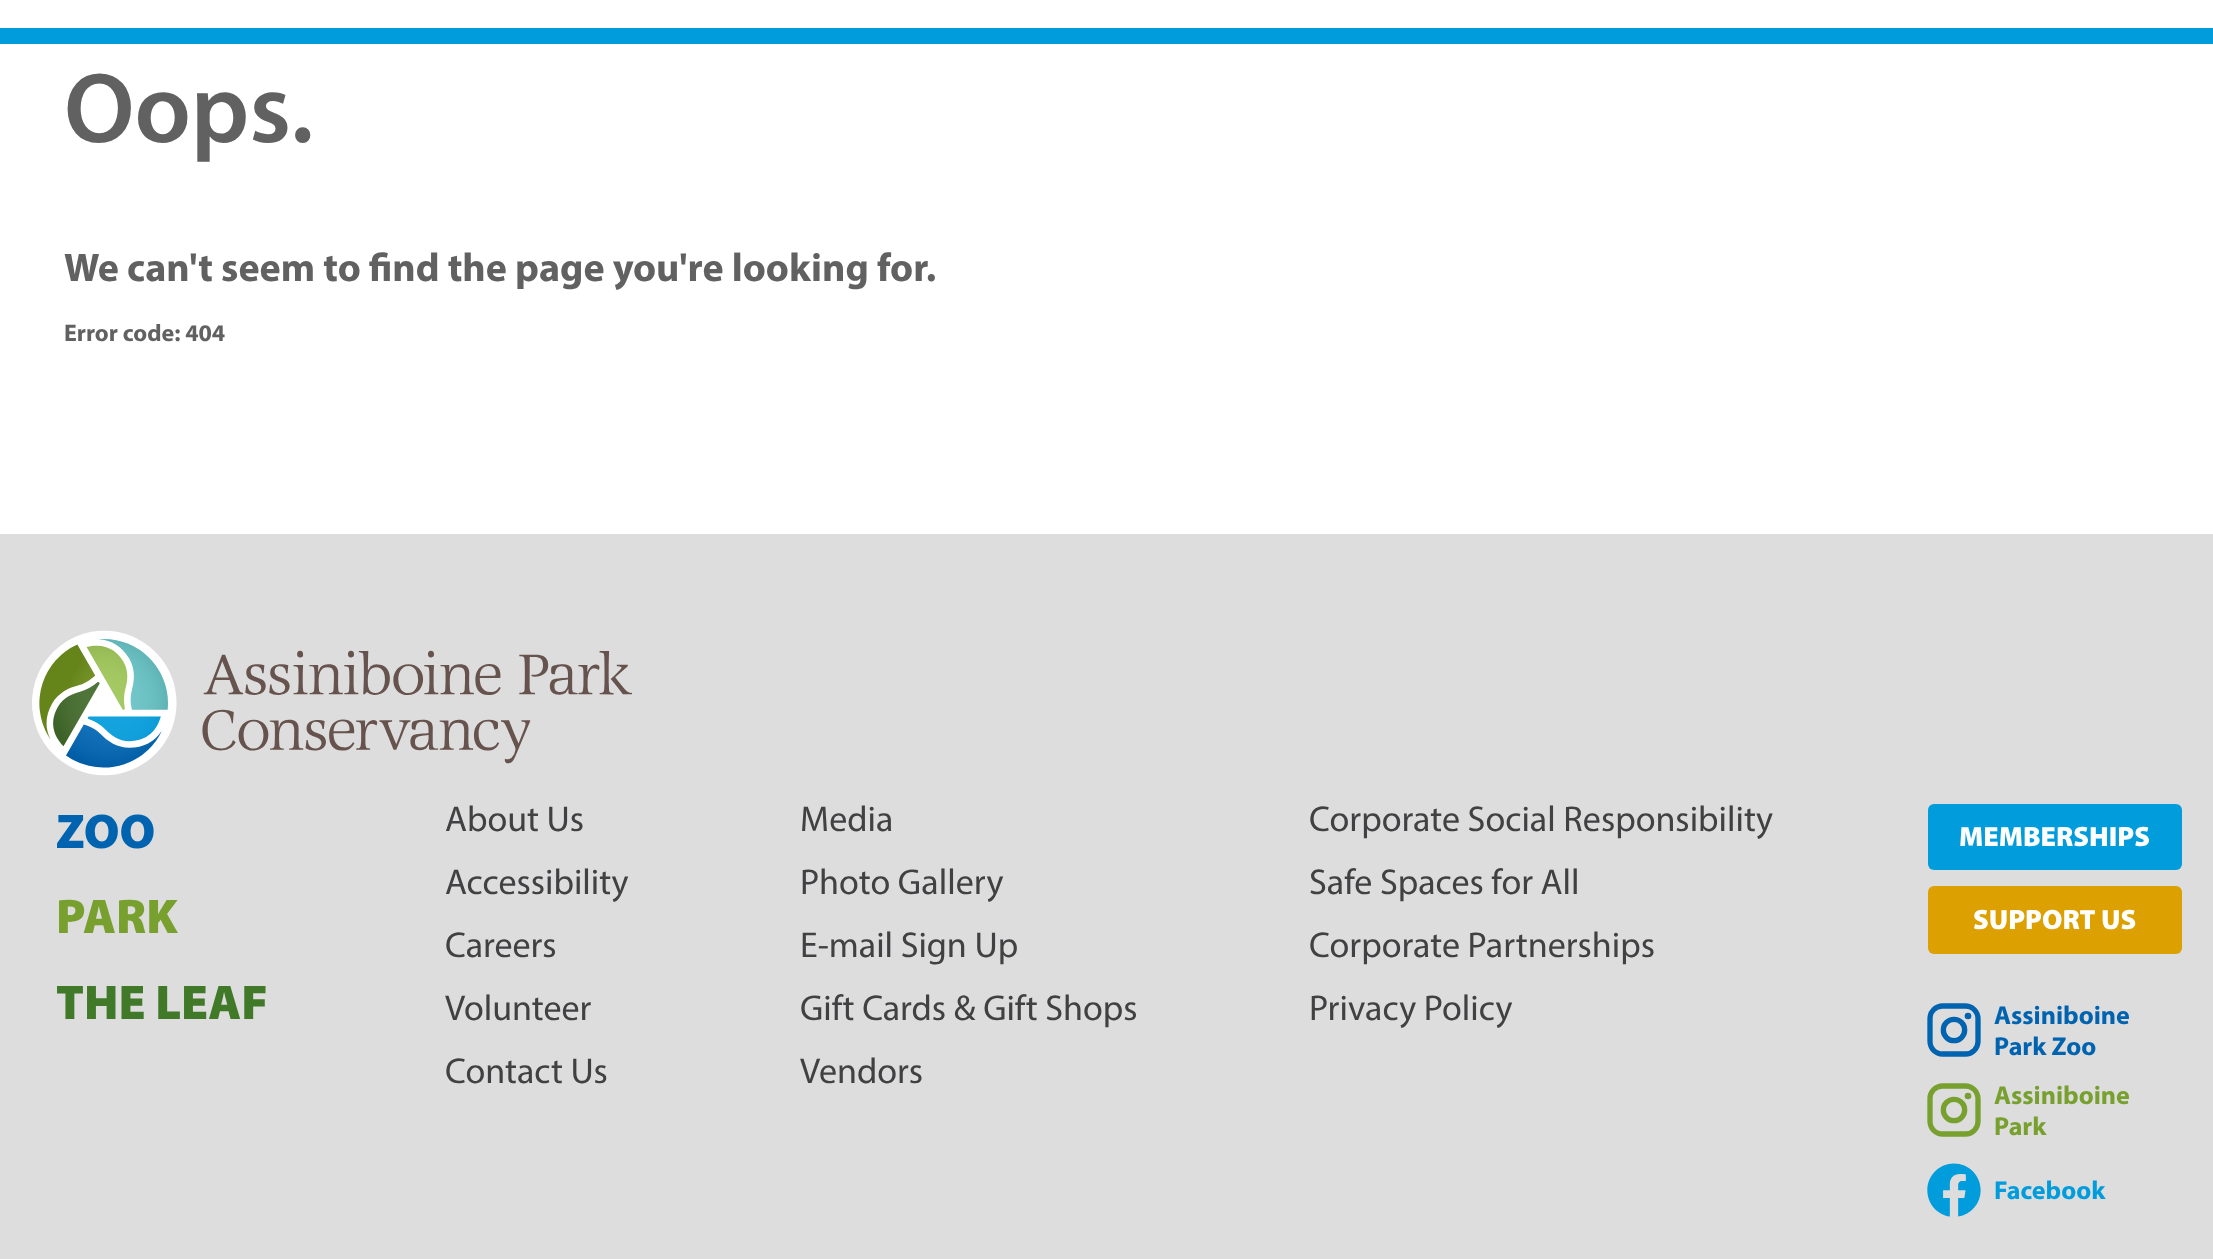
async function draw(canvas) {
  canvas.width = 2213;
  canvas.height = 1259;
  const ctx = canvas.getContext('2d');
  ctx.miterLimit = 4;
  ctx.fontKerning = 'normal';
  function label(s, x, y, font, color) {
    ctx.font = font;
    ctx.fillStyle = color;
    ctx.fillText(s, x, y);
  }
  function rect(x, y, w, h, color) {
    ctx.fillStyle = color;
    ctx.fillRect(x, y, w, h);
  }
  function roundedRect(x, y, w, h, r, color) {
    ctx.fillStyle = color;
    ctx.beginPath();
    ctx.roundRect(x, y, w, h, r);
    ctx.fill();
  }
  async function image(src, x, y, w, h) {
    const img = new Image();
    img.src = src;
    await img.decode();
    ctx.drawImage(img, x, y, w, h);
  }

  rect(0, 0, 2213, 1259, '#fff');
  rect(0, 28, 2213, 16, '#009cdc');
  label('Oops.', 64, 142, '600 100px Myriad', '#626161');
  label('We can\'t seem to find the page you\'re looking for.', 64, 281, 'bold 40px Myriad', '#626161');
  label('Error code: 404', 64, 341, 'bold 24px Myriad', '#626161');
  rect(0, 534, 2213, 725, '#ddd');
  await image('assets/img1.png', 32, 630, 600, 146);
  label('ZOO', 56, 848, '900 49px Myriad', '#0063af');
  label('PARK', 56, 933, '900 49px Myriad', '#77a02e');
  label('THE LEAF', 56, 1019, '900 49px Myriad', '#407928');
  label('About Us', 445, 831, '36px Myriad', '#414042');
  label('Accessibility', 445, 894, '36px Myriad', '#414042');
  label('Careers', 445, 957, '36px Myriad', '#414042');
  label('Volunteer', 445, 1020, '36px Myriad', '#414042');
  label('Contact Us', 445, 1083, '36px Myriad', '#414042');
  label('Media', 800, 831, '36px Myriad', '#414042');
  label('Photo Gallery', 800, 894, '36px Myriad', '#414042');
  label('E-mail Sign Up', 800, 957, '36px Myriad', '#414042');
  label('Gift Cards & Gift Shops', 800, 1020, '36px Myriad', '#414042');
  label('Vendors', 800, 1083, '36px Myriad', '#414042');
  label('Corporate Social Responsibility', 1309, 831, '36px Myriad', '#414042');
  label('Safe Spaces for All', 1309, 894, '36px Myriad', '#414042');
  label('Corporate Partnerships', 1309, 957, '36px Myriad', '#414042');
  label('Privacy Policy', 1309, 1020, '36px Myriad', '#414042');
  roundedRect(1928, 804, 254, 66, 6, '#009cdc');
  label('MEMBERSHIPS', 1959, 846, '900 28px Myriad', '#fff');
  roundedRect(1928, 886, 254, 68, 6, '#dca100');
  label('SUPPORT US', 1973, 929, '900 28px Myriad', '#fff');
  await image('assets/img2.png', 1927, 1003, 54, 54);
  label('Assiniboine', 1994, 1024, 'bold 26px Myriad', '#0063af');
  label('Park Zoo', 1994, 1055, 'bold 26px Myriad', '#0063af');
  await image('assets/img3.png', 1927, 1083, 54, 54);
  label('Assiniboine', 1994, 1104, 'bold 26px Myriad', '#77a02e');
  label('Park', 1994, 1135, 'bold 26px Myriad', '#77a02e');
  await image('assets/img4.png', 1927, 1163, 54, 54);
  label('Facebook', 1994, 1199, 'bold 26px Myriad', '#009cdc');
}

draw(document.querySelector('canvas'));
